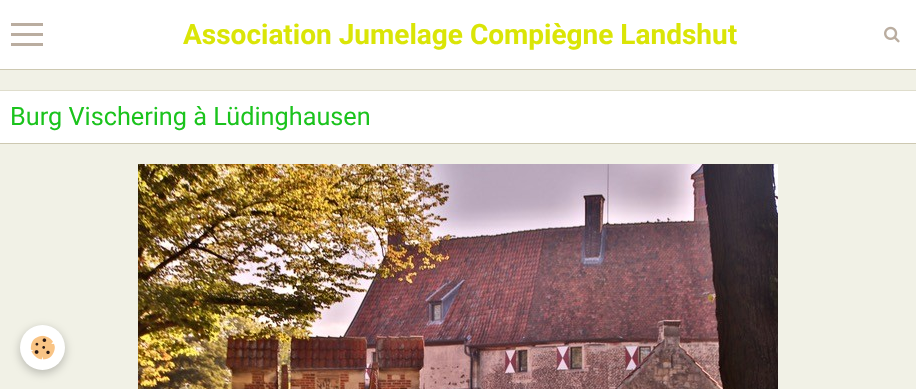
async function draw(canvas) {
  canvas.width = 916;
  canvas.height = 389;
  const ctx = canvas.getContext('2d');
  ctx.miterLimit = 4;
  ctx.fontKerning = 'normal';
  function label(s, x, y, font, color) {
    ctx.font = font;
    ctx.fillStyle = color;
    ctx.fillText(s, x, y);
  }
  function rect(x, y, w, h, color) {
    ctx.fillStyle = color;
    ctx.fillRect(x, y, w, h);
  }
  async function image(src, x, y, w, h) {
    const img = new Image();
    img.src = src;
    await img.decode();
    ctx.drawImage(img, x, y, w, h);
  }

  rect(0, 0, 916, 389, '#f1f1e6');
  rect(0, 0, 916, 69, '#fff');
  rect(0, 69, 916, 1, '#cdc8b1');
  rect(11, 33, 32, 3, '#baada0');
  rect(11, 23, 32, 3, '#baada0');
  rect(11, 43, 32, 3, '#baada0');
  label('Association Jumelage Compiègne Landshut', 183, 44, 'bold 28px Roboto', '#dae506');
  await image('assets/img1.png', 884, 26, 16, 17);
  rect(0, 90, 916, 1, '#dfddcc');
  rect(0, 91, 916, 52, '#fff');
  rect(0, 143, 916, 1, '#cdc8b1');
  label('Burg Vischering à Lüdinghausen', 10, 125, '25.25px Roboto', '#1bc31d');
  await image('assets/img2.png', 138, 164, 640, 225);
  ctx.fillStyle = '#0000003d';
  ctx.filter = 'blur(5px)';
  ctx.beginPath();
  ctx.roundRect(20, 328, 45, 45, 22.5);
  ctx.fill();
  ctx.filter = 'none';
  ctx.fillStyle = '#fff';
  ctx.beginPath();
  ctx.arc(42.5, 347.5, 22.5, 0, 2 * Math.PI);
  ctx.fill();
  await image('assets/img3.png', 30, 335, 25, 25);
}

draw(document.querySelector('canvas'));
